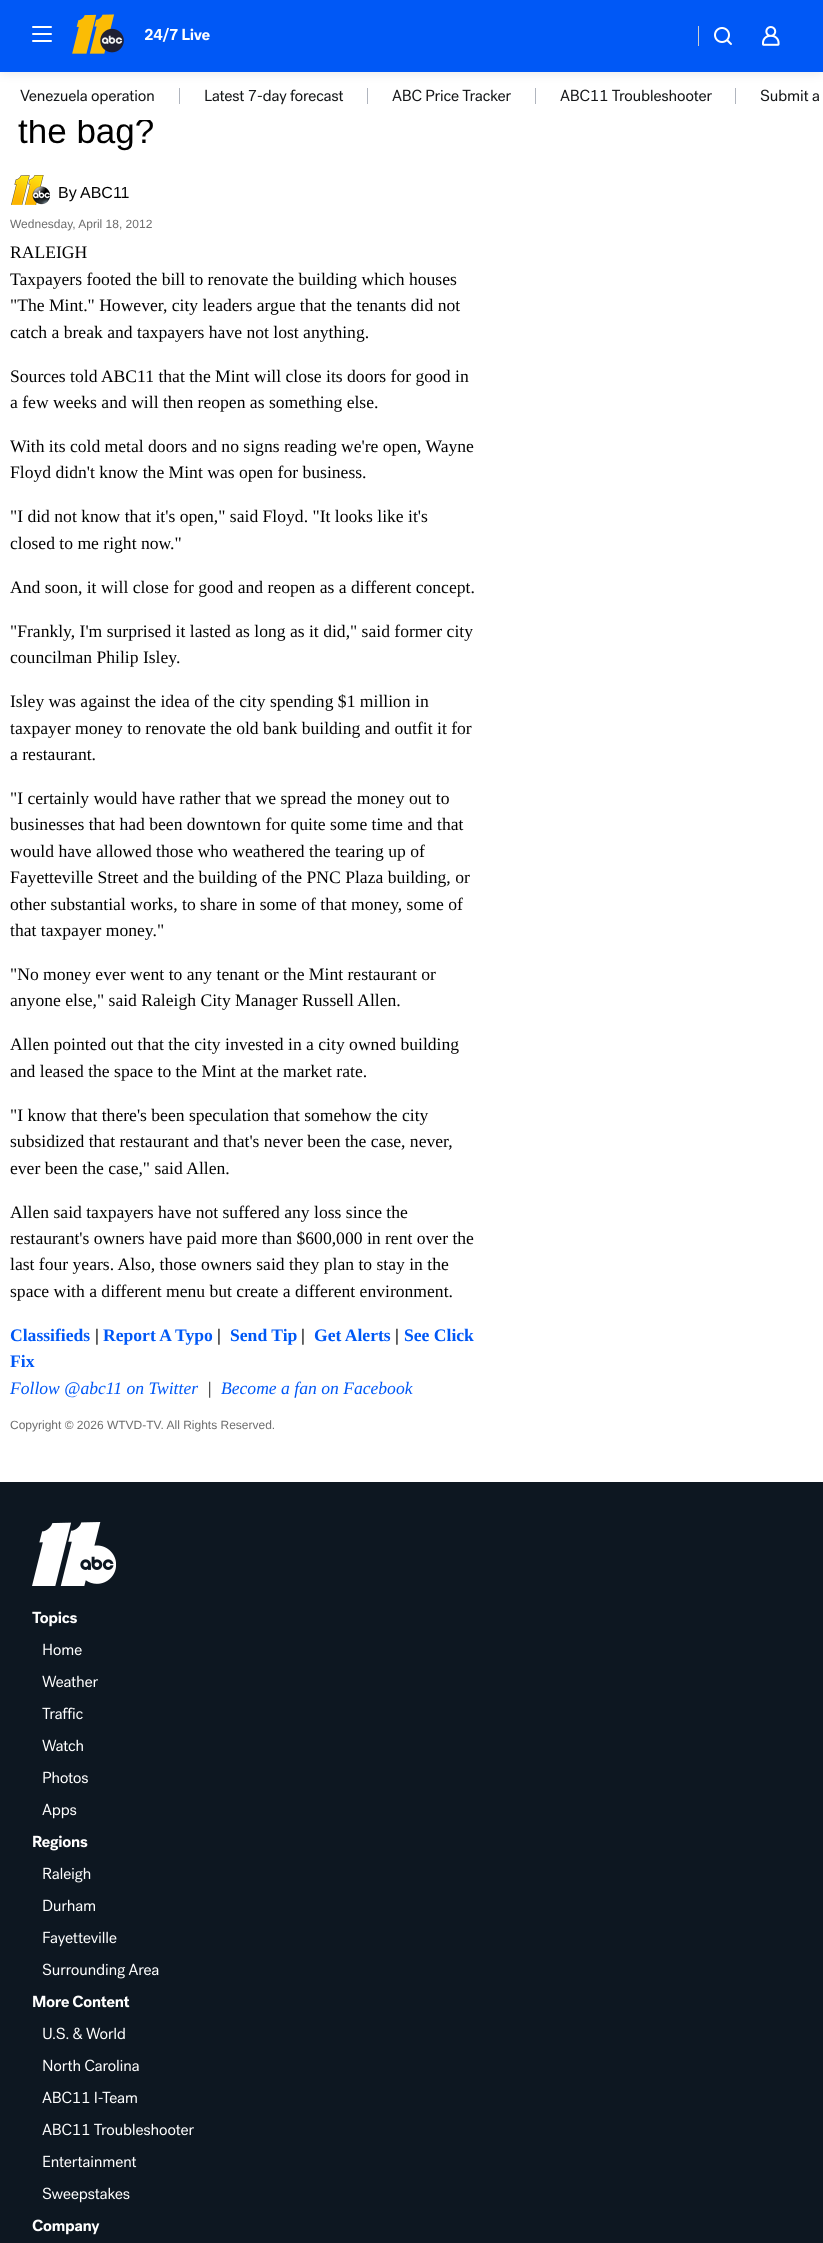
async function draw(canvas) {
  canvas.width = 823;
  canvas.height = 2243;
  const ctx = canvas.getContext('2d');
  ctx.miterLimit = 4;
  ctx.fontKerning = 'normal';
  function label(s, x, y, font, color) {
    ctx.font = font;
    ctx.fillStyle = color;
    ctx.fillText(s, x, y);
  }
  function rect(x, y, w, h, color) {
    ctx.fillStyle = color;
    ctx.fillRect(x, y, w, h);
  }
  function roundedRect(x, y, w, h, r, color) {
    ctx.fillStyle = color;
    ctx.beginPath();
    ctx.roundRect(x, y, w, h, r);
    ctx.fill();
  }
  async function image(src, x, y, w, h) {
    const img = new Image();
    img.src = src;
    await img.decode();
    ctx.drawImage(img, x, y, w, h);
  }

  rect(0, 0, 823, 2243, '#fff');
  await image('assets/img5.png', 20, 89, 134, 16);
  rect(179, 88, 1, 16, '#b0b5be');
  await image('assets/img6.png', 205, 89, 139, 16);
  rect(367, 88, 1, 16, '#b0b5be');
  await image('assets/img7.png', 392, 89, 119, 13);
  rect(535, 88, 1, 16, '#b0b5be');
  await image('assets/img8.png', 560, 89, 152, 13);
  rect(735, 88, 1, 16, '#b0b5be');
  await image('assets/img9.png', 760, 89, 59, 13);
  ctx.fillStyle = '#00000014';
  ctx.filter = 'blur(5px)';
  ctx.beginPath();
  ctx.rect(0, 2, 823, 72);
  ctx.fill();
  ctx.filter = 'none';
  rect(0, 0, 823, 72, '#0058f6');
  roundedRect(32, 33, 20, 2, 1, '#fff');
  roundedRect(32, 26, 20, 2, 1, '#fff');
  roundedRect(32, 40, 20, 2, 1, '#fff');
  await image('assets/img1.png', 72, 14, 52, 40);
  await image('assets/img2.png', 144, 27, 66, 15);
  rect(698, 26, 1, 20, '#cecfcf');
  await image('assets/img3.png', 714, 27, 18, 18);
  await image('assets/img4.png', 762, 26, 18, 20);
  label('the bag?', 18, 143, '35px Liberation Sans', '#000');
  rect(30, 117, 121, 3, '#fff');
  await image('assets/img10.png', 11, 175, 39, 30);
  label('By', 58, 198, '16px Liberation Sans', '#000');
  label('ABC11', 80, 198, '16px Liberation Sans', '#000');
  label('Wednesday, April 18, 2012', 10, 228, '12px Liberation Sans', '#6e6e6e');
  label('RALEIGH', 10, 258, '17.6px Liberation Serif', '#000');
  label('Taxpayers footed the bill to renovate the building which houses', 10, 285, '17.6px Liberation Serif', '#000');
  label('"The Mint." However, city leaders argue that the tenants did not', 10, 311, '17.6px Liberation Serif', '#000');
  label('catch a break and taxpayers have not lost anything.', 10, 338, '17.6px Liberation Serif', '#000');
  label('Sources told ABC11 that the Mint will close its doors for good in', 10, 382, '17.6px Liberation Serif', '#000');
  label('a few weeks and will then reopen as something else.', 10, 408, '17.6px Liberation Serif', '#000');
  label('With its cold metal doors and no signs reading we\'re open, Wayne', 10, 452, '17.6px Liberation Serif', '#000');
  label('Floyd didn\'t know the Mint was open for business.', 10, 478, '17.6px Liberation Serif', '#000');
  label('"I did not know that it\'s open," said Floyd. "It looks like it\'s', 10, 522, '17.6px Liberation Serif', '#000');
  label('closed to me right now."', 10, 549, '17.6px Liberation Serif', '#000');
  label('And soon, it will close for good and reopen as a different concept.', 10, 593, '17.6px Liberation Serif', '#000');
  label('"Frankly, I\'m surprised it lasted as long as it did," said former city', 10, 637, '17.6px Liberation Serif', '#000');
  label('councilman Philip Isley.', 10, 663, '17.6px Liberation Serif', '#000');
  label('Isley was against the idea of the city spending $1 million in', 10, 707, '17.6px Liberation Serif', '#000');
  label('taxpayer money to renovate the old bank building and outfit it for', 10, 734, '17.6px Liberation Serif', '#000');
  label('a restaurant.', 10, 760, '17.6px Liberation Serif', '#000');
  label('"I certainly would have rather that we spread the money out to', 10, 804, '17.6px Liberation Serif', '#000');
  label('businesses that had been downtown for quite some time and that', 10, 830, '17.6px Liberation Serif', '#000');
  label('would have allowed those who weathered the tearing up of', 10, 857, '17.6px Liberation Serif', '#000');
  label('Fayetteville Street and the building of the PNC Plaza building, or', 10, 883, '17.6px Liberation Serif', '#000');
  label('other substantial works, to share in some of that money, some of', 10, 910, '17.6px Liberation Serif', '#000');
  label('that taxpayer money."', 10, 936, '17.6px Liberation Serif', '#000');
  label('"No money ever went to any tenant or the Mint restaurant or', 10, 980, '17.6px Liberation Serif', '#000');
  label('anyone else," said Raleigh City Manager Russell Allen.', 10, 1006, '17.6px Liberation Serif', '#000');
  label('Allen pointed out that the city invested in a city owned building', 10, 1050, '17.6px Liberation Serif', '#000');
  label('and leased the space to the Mint at the market rate.', 10, 1077, '17.6px Liberation Serif', '#000');
  label('"I know that there\'s been speculation that somehow the city', 10, 1121, '17.6px Liberation Serif', '#000');
  label('subsidized that restaurant and that\'s never been the case, never,', 10, 1147, '17.6px Liberation Serif', '#000');
  label('ever been the case," said Allen.', 10, 1174, '17.6px Liberation Serif', '#000');
  label('Allen said taxpayers have not suffered any loss since the', 10, 1218, '17.6px Liberation Serif', '#000');
  label('restaurant\'s owners have paid more than $600,000 in rent over the', 10, 1244, '17.6px Liberation Serif', '#000');
  label('last four years. Also, those owners said they plan to stay in the', 10, 1270, '17.6px Liberation Serif', '#000');
  label('space with a different menu but create a different environment.', 10, 1297, '17.6px Liberation Serif', '#000');
  label('Classifieds', 10, 1341, 'bold 17.6px Liberation Serif', '#0058f6');
  label('|', 95, 1341, 'bold 17.6px Liberation Serif', '#000');
  label('Report A Typo', 103, 1341, 'bold 17.6px Liberation Serif', '#0058f6');
  label('|', 217, 1341, 'bold 17.6px Liberation Serif', '#000');
  label('Send Tip', 230, 1341, 'bold 17.6px Liberation Serif', '#0058f6');
  label('|', 301, 1341, 'bold 17.6px Liberation Serif', '#000');
  label('Get Alerts', 314, 1341, 'bold 17.6px Liberation Serif', '#0058f6');
  label('|', 395, 1341, 'bold 17.6px Liberation Serif', '#000');
  label('See Click', 404, 1341, 'bold 17.6px Liberation Serif', '#0058f6');
  label('Fix', 10, 1367, 'bold 17.6px Liberation Serif', '#0058f6');
  label('Follow @abc11 on Twitter', 10, 1394, 'italic 17.6px Liberation Serif', '#0058f6');
  label('|', 207, 1394, 'italic 17.6px Liberation Serif', '#000');
  label('Become a fan on Facebook', 221, 1394, 'italic 17.6px Liberation Serif', '#0058f6');
  label('Copyright © 2026 WTVD-TV. All Rights Reserved.', 10, 1429, '12px Liberation Sans', '#6e6e6e');
  rect(0, 1482, 823, 761, '#0d1721');
  await image('assets/img11.png', 32, 1522, 84, 64);
  await image('assets/img12.png', 32, 1611, 45, 16);
  await image('assets/img13.png', 43, 1643, 39, 13);
  await image('assets/img14.png', 42, 1675, 56, 13);
  await image('assets/img15.png', 42, 1707, 41, 13);
  await image('assets/img16.png', 42, 1739, 41, 13);
  await image('assets/img17.png', 43, 1771, 45, 13);
  await image('assets/img18.png', 42, 1803, 35, 16);
  await image('assets/img19.png', 33, 1835, 55, 16);
  await image('assets/img20.png', 43, 1867, 48, 16);
  await image('assets/img21.png', 43, 1899, 52, 13);
  await image('assets/img22.png', 43, 1931, 74, 16);
  await image('assets/img23.png', 42, 1963, 117, 16);
  await image('assets/img24.png', 33, 1995, 97, 13);
  await image('assets/img25.png', 43, 2027, 82, 13);
  await image('assets/img26.png', 43, 2059, 96, 13);
  await image('assets/img27.png', 42, 2091, 95, 13);
  await image('assets/img28.png', 42, 2123, 152, 13);
  await image('assets/img29.png', 43, 2155, 94, 13);
  await image('assets/img30.png', 42, 2187, 88, 16);
  await image('assets/img31.png', 32, 2219, 68, 16);
}

draw(document.querySelector('canvas'));
